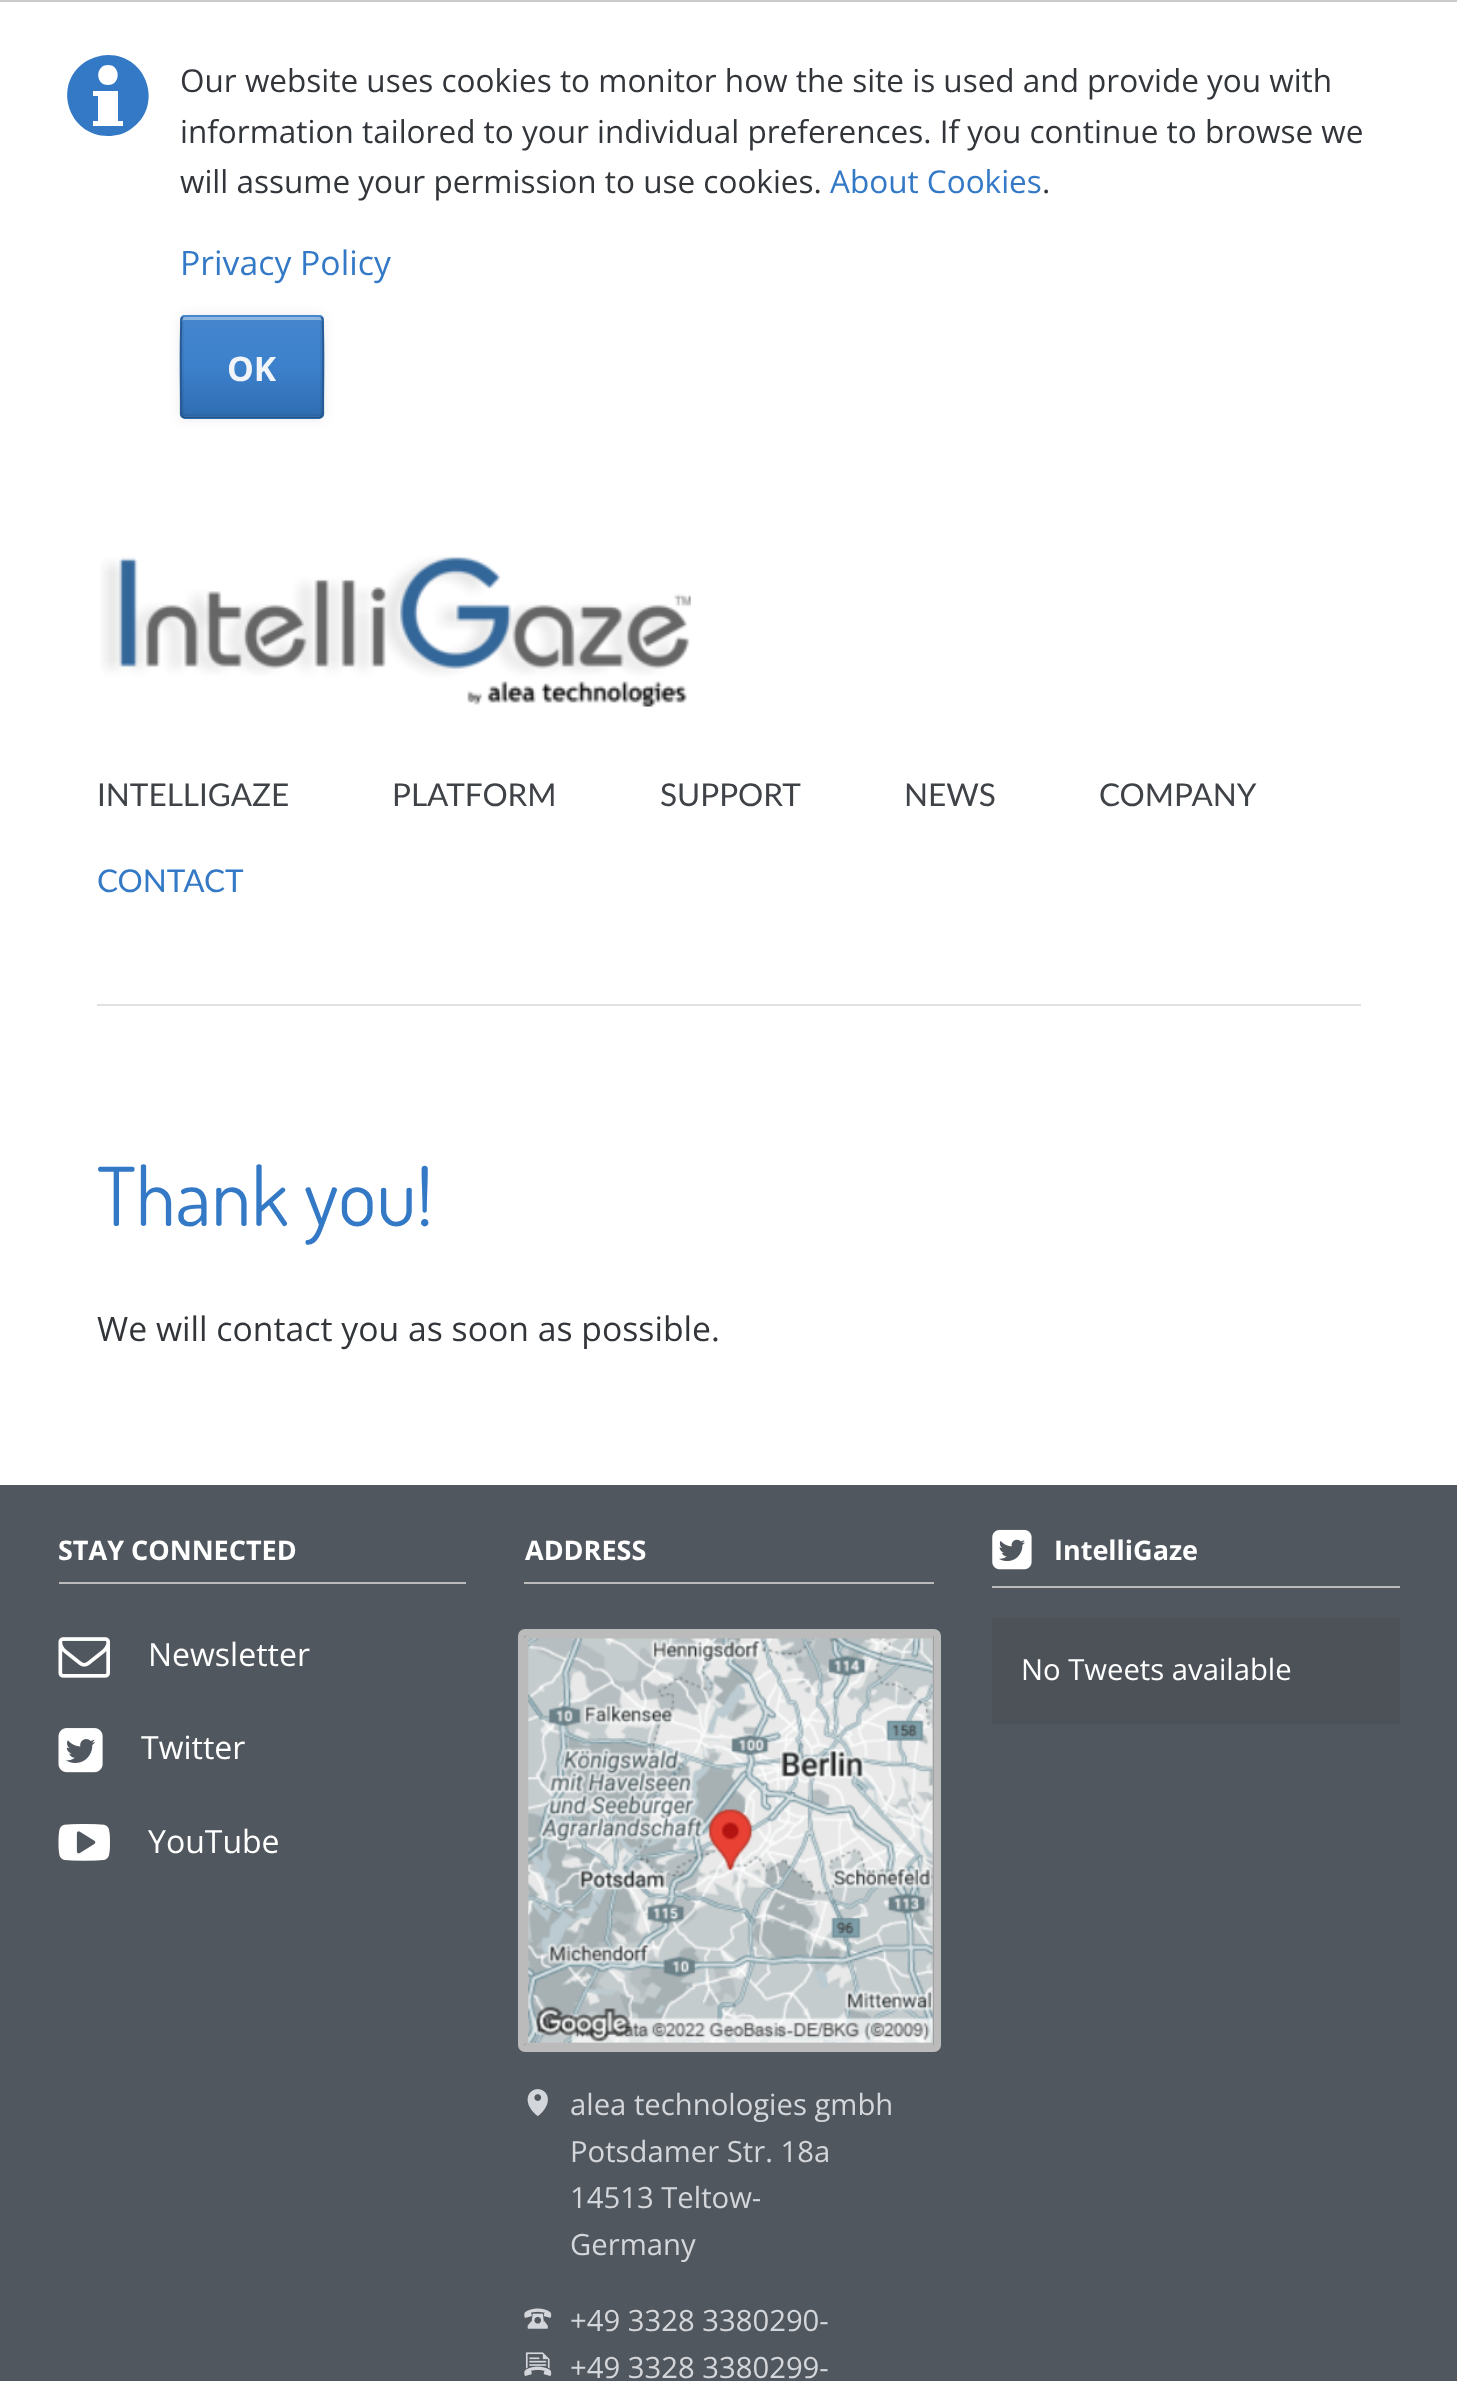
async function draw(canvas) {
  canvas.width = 1457;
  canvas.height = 2381;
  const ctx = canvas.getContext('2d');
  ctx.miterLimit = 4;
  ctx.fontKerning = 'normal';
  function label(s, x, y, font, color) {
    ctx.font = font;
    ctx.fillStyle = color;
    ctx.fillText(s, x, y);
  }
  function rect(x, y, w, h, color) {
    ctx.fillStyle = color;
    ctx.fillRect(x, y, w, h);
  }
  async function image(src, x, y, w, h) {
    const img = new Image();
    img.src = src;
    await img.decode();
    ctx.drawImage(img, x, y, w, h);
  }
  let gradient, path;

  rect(0, 0, 1457, 2381, '#51575e');
  rect(0, 0, 1457, 2, '#cbcbcb');
  rect(0, 2, 1457, 1483, '#fff');
  ctx.fillStyle = '#3479c6';
  path = new Path2D('M108 55C100 55 92 58 85 62C52 84 68 136 108 136C116 136 124 134 131 129C164 107 148 55 108 55ZM108 65C121 65 121 85 108 85C95 85 95 65 108 65ZM123 126H93V121H98V96H93V91H118V121H123Z');
  ctx.fill(path);
  label('Our website uses cookies to monitor how the site is used and provide you with', 180, 92, '31.5px Open Sans', '#323539');
  label('information tailored to your individual preferences. If you continue to browse we', 180, 143, '31.5px Open Sans', '#323539');
  label('will assume your permission to use cookies.', 180, 193, '31.5px Open Sans', '#323539');
  label('About Cookies', 830, 193, '31.5px Open Sans', '#3479c6');
  label('.', 1042, 193, '31.5px Open Sans', '#323539');
  label('Privacy Policy', 180, 275, '33.75px Open Sans', '#3479c6');
  ctx.fillStyle = '#1a1a1a1a';
  ctx.filter = 'blur(5.5px)';
  ctx.beginPath();
  ctx.roundRect(180, 315, 144, 104, 5);
  ctx.fill();
  ctx.filter = 'none';
  ctx.save();
  ctx.beginPath();
  ctx.roundRect(180, 315, 144, 104, 5);
  ctx.clip();
  gradient = ctx.createLinearGradient(252, 218, 252, 317);
  gradient.addColorStop(0, '#4586ce');
  gradient.addColorStop(0.5, '#3d81cc');
  gradient.addColorStop(1, '#2f6db2');
  ctx.fillStyle = gradient;
  ctx.fillRect(180, 315, 144, 2);
  gradient = ctx.createLinearGradient(252, 317, 252, 416);
  gradient.addColorStop(0, '#4586ce');
  gradient.addColorStop(0.5, '#3d81cc');
  gradient.addColorStop(1, '#2f6db2');
  ctx.fillStyle = gradient;
  ctx.fillRect(180, 317, 144, 99);
  gradient = ctx.createLinearGradient(252, 416, 252, 515);
  gradient.addColorStop(0, '#4586ce');
  gradient.addColorStop(0.5, '#3d81cc');
  gradient.addColorStop(1, '#2f6db2');
  ctx.fillStyle = gradient;
  ctx.fillRect(180, 416, 144, 3);
  ctx.restore();
  ctx.fillStyle = '#0000000d';
  path = new Path2D('M317 416H320C321 416 322 415 322 414V319C322 318 321 317 320 317H317C318 317 320 318 320 320V414C320 415 318 416 317 416Z');
  ctx.fill(path);
  path = new Path2D('M184 317C183 317 182 318 182 319V414C182 415 183 416 184 416H187C186 416 184 415 184 414V320C184 318 186 317 187 317Z');
  ctx.fill(path);
  path = new Path2D('M182 412V414C182 415 183 416 184 416H320C321 416 322 415 322 414V412C322 413 321 414 320 414H184C183 414 182 413 182 412Z');
  ctx.fill(path);
  ctx.fillStyle = '#ffffff66';
  path = new Path2D('M184 320H320C321 320 322 321 322 322V319C322 318 321 317 320 317H184C183 317 182 318 182 319V322C182 321 183 320 184 320Z');
  ctx.fill(path);
  path = new Path2D('M182 317L184.5 316H319.5L322 317');
  ctx.strokeStyle = '#4586ce';
  ctx.lineWidth = 2.2;
  ctx.stroke(path);
  path = new Path2D('M322 317V317.5C324 319.5 323 389.5 323 398V414L322 416.5');
  ctx.strokeStyle = '#275b96';
  ctx.stroke(path);
  path = new Path2D('M322 416.5L319.5 417.5H184.5L182 416.5');
  ctx.strokeStyle = '#245489';
  ctx.stroke(path);
  path = new Path2D('M182 416.5L181 414V398C181 389.5 180 319.5 182 317.5V317');
  ctx.strokeStyle = '#275b96';
  ctx.stroke(path);
  label('OK', 227, 381, 'bold 33.75px Open Sans', '#f1f4f8');
  rect(97, 1004, 1264, 2, '#e1e1e1');
  await image('assets/img1.png', 100, 555, 591, 152);
  label('INTELLIGAZE', 97, 806, '31.5px Lato', '#3f4348');
  label('PLATFORM', 392, 806, '31.5px Lato', '#3f4348');
  label('SUPPORT', 660, 806, '31.5px Lato', '#3f4348');
  label('NEWS', 904, 806, '31.5px Lato', '#3f4348');
  label('COMPANY', 1099, 806, '31.5px Lato', '#3f4348');
  label('CONTACT', 97, 892, '31.5px Lato', '#3479c6');
  label('Thank you!', 97, 1226, '81px Dosis', '#3479c6');
  label('We will contact you as soon as possible.', 97, 1341, '33.75px Open Sans', '#323539');
  rect(59, 1582, 407, 2, '#bbb');
  label('STAY CONNECTED', 58, 1560, 'bold 27px Open Sans', '#fff');
  await image('assets/img2.png', 58, 1637, 52, 41);
  label('Newsletter', 148, 1666, '32px Open Sans', '#fff');
  await image('assets/img3.png', 58, 1728, 45, 45);
  label('Twitter', 141, 1759, '32px Open Sans', '#fff');
  await image('assets/img4.png', 58, 1824, 52, 37);
  label('YouTube', 148, 1853, '32px Open Sans', '#fff');
  rect(524, 1582, 410, 2, '#bbb');
  label('ADDRESS', 525, 1560, 'bold 27px Open Sans', '#fff');
  ctx.beginPath();
  ctx.roundRect(521.5, 1632.5, 416, 416, 3.5);
  ctx.strokeStyle = '#bbb';
  ctx.lineWidth = 7;
  ctx.stroke();
  await image('assets/img5.png', 524, 1635, 410, 411);
  await image('assets/img6.png', 527, 2089, 21, 27);
  label('alea technologies gmbh', 570, 2115, '29.25px Open Sans', '#d3d6da');
  label('Potsdamer Str. 18a', 570, 2162, '29.25px Open Sans', '#d3d6da');
  label('14513 Teltow-', 570, 2208, '29.25px Open Sans', '#d3d6da');
  label('Germany', 570, 2255, '29.25px Open Sans', '#d3d6da');
  await image('assets/img7.png', 524, 2308, 28, 21);
  label('+49 3328 3380290-', 570, 2331, '29.25px Open Sans', '#d3d6da');
  await image('assets/img8.png', 524, 2352, 28, 24);
  label('+49 3328 3380299-', 570, 2378, '29.25px Open Sans', '#d3d6da');
  rect(992, 1586, 408, 2, '#bbb');
  await image('assets/img9.png', 992, 1529, 40, 41);
  label('IntelliGaze', 1054, 1560, 'bold 27px Open Sans', '#fff');
  rect(992, 1618, 408, 106, '#4c5258');
  label('No Tweets available', 1021, 1680, '29.25px Open Sans', '#fff');
}

draw(document.querySelector('canvas'));
